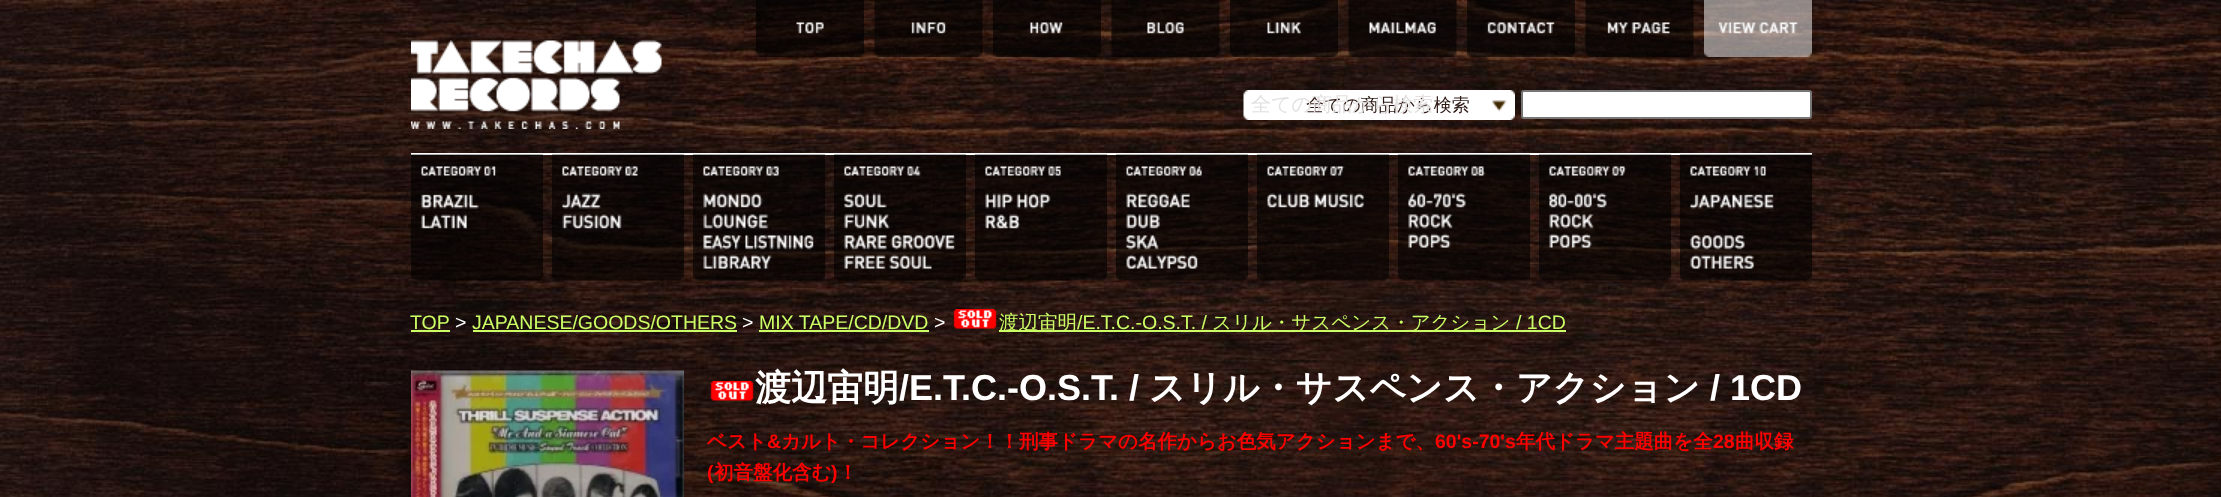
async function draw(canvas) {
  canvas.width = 2221;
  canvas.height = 497;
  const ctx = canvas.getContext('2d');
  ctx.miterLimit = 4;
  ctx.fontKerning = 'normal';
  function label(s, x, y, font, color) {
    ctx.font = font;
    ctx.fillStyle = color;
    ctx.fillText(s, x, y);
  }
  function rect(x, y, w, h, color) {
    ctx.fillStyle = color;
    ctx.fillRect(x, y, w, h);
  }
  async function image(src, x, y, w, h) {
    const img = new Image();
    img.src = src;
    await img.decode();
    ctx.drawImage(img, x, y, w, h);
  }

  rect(0, 0, 2221, 497, '#fff');
  await image('assets/img1.png', 0, 0, 2221, 497);
  await image('assets/img2.png', 411, 40, 251, 89);
  await image('assets/img3.png', 756, 0, 108, 57);
  await image('assets/img4.png', 874, 0, 109, 57);
  await image('assets/img5.png', 993, 0, 108, 57);
  await image('assets/img6.png', 1111, 0, 109, 57);
  await image('assets/img7.png', 1230, 0, 108, 57);
  await image('assets/img8.png', 1348, 0, 109, 57);
  await image('assets/img9.png', 1467, 0, 108, 57);
  await image('assets/img10.png', 1585, 0, 109, 57);
  await image('assets/img11.png', 1704, 0, 108, 57);
  await image('assets/img12.png', 1243, 90, 272, 30);
  label('全ての商品から検索', 1306, 111, '500 18px WenQuanYi Zen Hei', '#2e1914');
  label('全ての商品から検索', 1251, 111, '500 20px WenQuanYi Zen Hei', '#e3e0e0');
  ctx.fillStyle = '#fff';
  ctx.beginPath();
  ctx.roundRect(1522, 91, 289, 27, 2);
  ctx.fill();
  ctx.strokeStyle = '#767676';
  ctx.lineWidth = 2;
  ctx.stroke();
  rect(411, 153, 1401, 2, '#fff');
  await image('assets/img13.png', 411, 154, 132, 127);
  await image('assets/img14.png', 552, 154, 132, 127);
  await image('assets/img15.png', 693, 154, 132, 127);
  await image('assets/img16.png', 834, 154, 132, 127);
  await image('assets/img17.png', 975, 154, 132, 127);
  await image('assets/img18.png', 1116, 154, 132, 127);
  await image('assets/img19.png', 1257, 154, 132, 127);
  await image('assets/img20.png', 1398, 154, 132, 127);
  await image('assets/img21.png', 1539, 154, 132, 127);
  await image('assets/img22.png', 1680, 154, 132, 127);
  label('TOP', 410, 329, '19.5px Liberation Sans', '#cf6');
  rect(411, 330, 39, 2, '#cf6');
  label('>', 455, 329, '19.5px Liberation Sans', '#fff');
  label('JAPANESE/GOODS/OTHERS', 472, 329, '19.5px Liberation Sans', '#cf6');
  rect(473, 330, 264, 2, '#cf6');
  label('>', 742, 329, '19.5px Liberation Sans', '#fff');
  label('MIX TAPE/CD/DVD', 759, 329, '19.5px Liberation Sans', '#cf6');
  rect(759, 330, 170, 2, '#cf6');
  label('>', 934, 329, '19.5px Liberation Sans', '#fff');
  await image('assets/img23.png', 953, 309, 44, 20);
  rect(999, 330, 567, 2, '#cf6');
  label('渡辺宙明', 999, 329, '500 19.5px WenQuanYi Zen Hei', '#cf6');
  label('/E.T.C.-O.S.T. /', 1077, 329, '19.5px Liberation Sans', '#cf6');
  label('スリル・サスペンス・アクション', 1212, 329, '500 19.5px WenQuanYi Zen Hei', '#cf6');
  label('/ 1CD', 1516, 329, '19.5px Liberation Sans', '#cf6');
  await image('assets/img24.png', 411, 370, 273, 127);
  await image('assets/img25.png', 710, 381, 44, 20);
  label('渡辺宙明', 755, 400, 'bold 36px WenQuanYi Zen Hei', '#fff');
  label('/E.T.C.-O.S.T. /', 899, 400, 'bold 36px Liberation Sans', '#fff');
  label('スリル・サスペンス・アクション', 1149, 400, 'bold 36px WenQuanYi Zen Hei', '#fff');
  label('/ 1CD', 1710, 400, 'bold 36px Liberation Sans', '#fff');
  label('ベスト', 707, 448, 'bold 19.5px WenQuanYi Zen Hei', '#f00');
  label('&', 767, 448, 'bold 19.5px Liberation Sans', '#f00');
  label('カルト・コレクション！！刑事ドラマの名作からお色気アクションまで、', 781, 448, 'bold 19.5px WenQuanYi Zen Hei', '#f00');
  label('60\'s-70\'s', 1435, 448, 'bold 19.5px Liberation Sans', '#f00');
  label('年代ドラマ主題曲を全', 1516, 448, 'bold 19.5px WenQuanYi Zen Hei', '#f00');
  label('28', 1713, 448, 'bold 19.5px Liberation Sans', '#f00');
  label('曲収録', 1735, 448, 'bold 19.5px WenQuanYi Zen Hei', '#f00');
  label('(', 707, 479, 'bold 19.5px Liberation Sans', '#f00');
  label('初音盤化含む', 714, 479, 'bold 19.5px WenQuanYi Zen Hei', '#f00');
  label(')', 831, 479, 'bold 19.5px Liberation Sans', '#f00');
  label('！', 838, 479, 'bold 19.5px WenQuanYi Zen Hei', '#f00');
}

draw(document.querySelector('canvas'));
